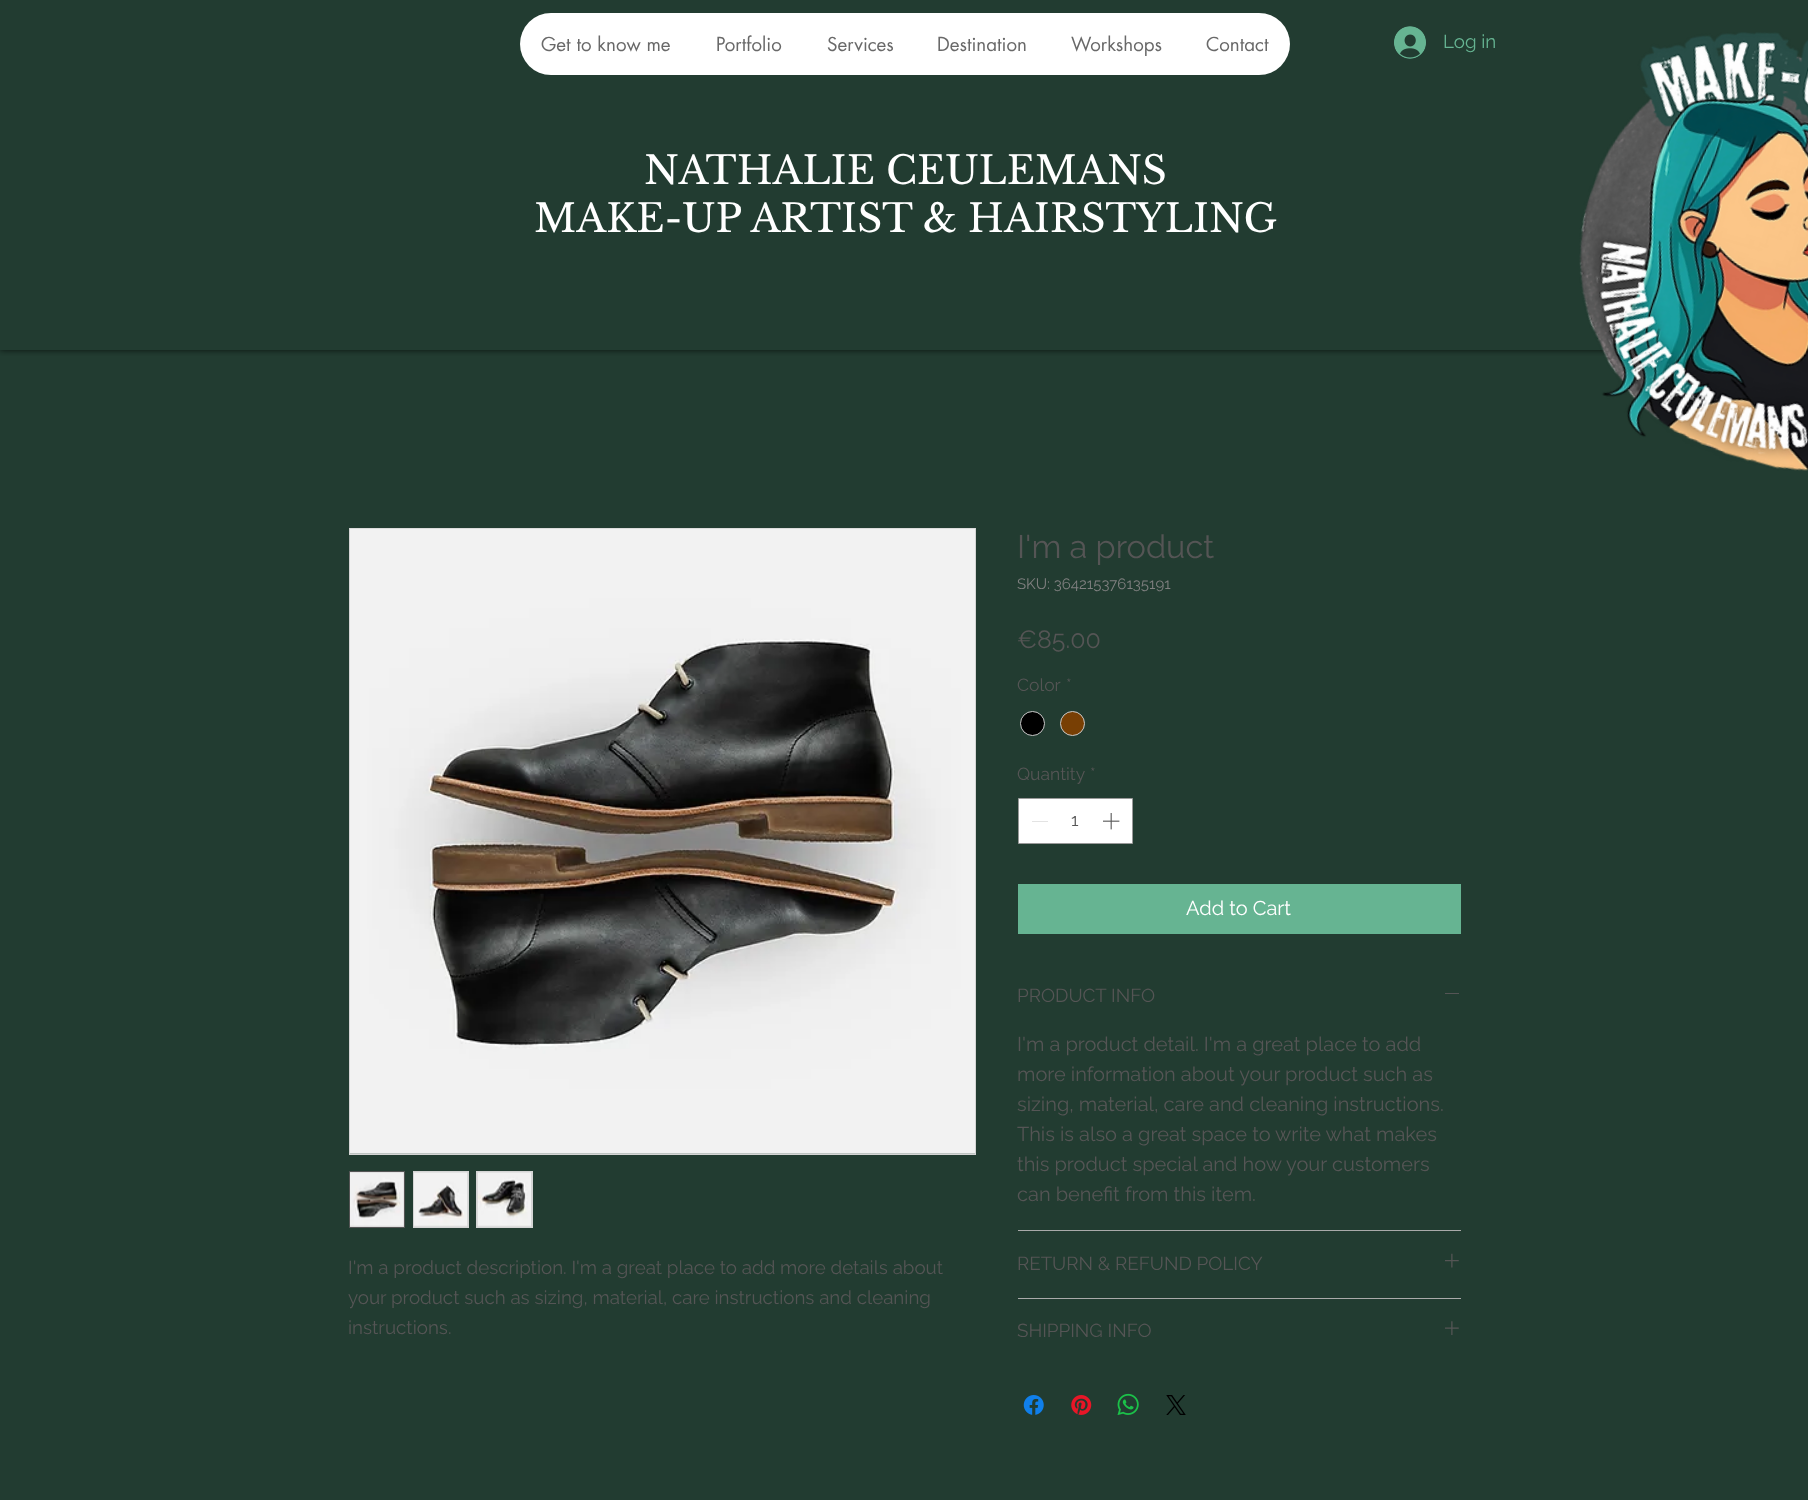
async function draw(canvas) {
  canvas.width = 1808;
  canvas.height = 1500;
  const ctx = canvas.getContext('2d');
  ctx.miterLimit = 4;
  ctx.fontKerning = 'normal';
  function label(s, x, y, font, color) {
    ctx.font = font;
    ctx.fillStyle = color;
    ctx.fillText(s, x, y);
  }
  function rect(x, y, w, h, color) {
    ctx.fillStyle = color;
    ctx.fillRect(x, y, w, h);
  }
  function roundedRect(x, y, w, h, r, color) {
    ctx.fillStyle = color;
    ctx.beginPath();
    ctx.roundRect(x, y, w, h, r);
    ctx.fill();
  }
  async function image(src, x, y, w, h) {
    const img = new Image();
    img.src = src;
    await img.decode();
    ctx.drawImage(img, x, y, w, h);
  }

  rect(0, 0, 1808, 1500, '#223c31');
  ctx.save();
  ctx.beginPath();
  ctx.rect(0, 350, 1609, 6);
  ctx.clip();
  ctx.fillStyle = '#000000b3';
  ctx.filter = 'blur(3px)';
  ctx.beginPath();
  ctx.rect(0, 0, 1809, 350);
  ctx.fill();
  ctx.filter = 'none';
  ctx.restore();
  await image('assets/img1.png', 1394, 26, 32, 33);
  label('Log in', 1443, 48, '18.75px Raleway', '#66b492');
  await image('assets/img2.png', 1579, 32, 229, 439);
  label('NATHALIE CEULEMANS', 644, 184, '38.75px Libre Baskerville', '#fff');
  label('MAKE-UP ARTIST & HAIRSTYLING', 534, 232, '38.75px Libre Baskerville', '#fff');
  roundedRect(520, 13, 770, 62, 31, '#fff');
  label('Get to know me', 541, 51, '18.75px futura', '#696969');
  label('Portfolio', 716, 51, '18.75px futura', '#696969');
  label('Services', 827, 51, '18.75px futura', '#696969');
  label('Destination', 937, 51, '18.75px futura', '#696969');
  label('Workshops', 1071, 51, '18.75px futura', '#696969');
  label('Contact', 1206, 51, '18.75px futura', '#696969');
  ctx.strokeStyle = '#d5d5d5';
  ctx.strokeRect(349.5, 528.5, 626, 626);
  await image('assets/img3.png', 350, 528, 625, 626);
  ctx.fillStyle = '#d5d5d5';
  ctx.beginPath();
  ctx.rect(349.5, 1171.5, 55, 56);
  ctx.fill();
  ctx.strokeStyle = '#555';
  ctx.stroke();
  await image('assets/img4.png', 350, 1172, 54, 55);
  rect(413, 1171, 56, 57, '#d5d5d5');
  await image('assets/img5.png', 414, 1172, 54, 55);
  rect(476, 1171, 57, 57, '#d5d5d5');
  await image('assets/img6.png', 477, 1172, 54, 55);
  label('I\'m a product description. I\'m a great place to add more details about', 348, 1274, '18.75px Raleway', '#555');
  label('your product such as sizing, material, care instructions and cleaning', 348, 1304, '18.75px Raleway', '#555');
  label('instructions.', 348, 1334, '18.75px Raleway', '#555');
  label('I\'m a product', 1017, 558, '32.5px Raleway', '#555');
  label('SKU: 364215376135191', 1017, 589, '15px Raleway', '#808080');
  label('€85.00', 1017, 648, '25px Raleway', '#555');
  label('Color', 1017, 691, '17.5px Raleway', '#555');
  label('*', 1066, 691, '17.5px Raleway', '#555');
  ctx.fillStyle = '#000';
  ctx.beginPath();
  ctx.arc(1032.5, 723.5, 12, 0, 2 * Math.PI);
  ctx.fill();
  ctx.strokeStyle = '#c9c9c9';
  ctx.stroke();
  ctx.fillStyle = '#783f04';
  ctx.beginPath();
  ctx.arc(1072.5, 723.5, 12, 0, 2 * Math.PI);
  ctx.fill();
  ctx.stroke();
  label('Quantity', 1017, 780, '17.5px Raleway', '#555');
  label('*', 1090, 780, '17.5px Raleway', '#555');
  ctx.fillStyle = '#fff';
  ctx.beginPath();
  ctx.rect(1018.5, 798.5, 114, 45);
  ctx.fill();
  ctx.strokeStyle = '#999';
  ctx.stroke();
  rect(1032, 821, 16, 1, '#e3e3e3');
  label('1', 1071, 826, '17.5px Raleway', '#555');
  await image('assets/img7.png', 1103, 813, 17, 17);
  rect(1018, 884, 443, 50, '#66b492');
  label('Add to Cart', 1186, 915, '20px Raleway', '#fff');
  rect(1018, 1230, 443, 1, '#aaa');
  label('PRODUCT INFO', 1017, 1002, '18.75px Raleway', '#555');
  rect(1445, 993, 14, 1, '#555');
  label('I\'m a product detail. I\'m a great place to add', 1017, 1051, '20px Raleway', '#555');
  label('more information about your product such as', 1017, 1081, '20px Raleway', '#555');
  label('sizing, material, care and cleaning instructions.', 1017, 1111, '20px Raleway', '#555');
  label('This is also a great space to write what makes', 1017, 1141, '20px Raleway', '#555');
  label('this product special and how your customers', 1017, 1171, '20px Raleway', '#555');
  label('can benefit from this item.', 1017, 1201, '20px Raleway', '#555');
  rect(1018, 1298, 443, 1, '#aaa');
  label('RETURN & REFUND POLICY', 1017, 1270, '18.75px Raleway', '#555');
  await image('assets/img8.png', 1445, 1253, 14, 15);
  label('SHIPPING INFO', 1017, 1337, '18.75px Raleway', '#555');
  await image('assets/img9.png', 1445, 1321, 14, 14);
  await image('assets/img10.png', 1023, 1395, 21, 20);
  await image('assets/img11.png', 1071, 1395, 21, 20);
  await image('assets/img12.png', 1117, 1393, 22, 22);
  await image('assets/img13.png', 1166, 1395, 20, 20);
}

draw(document.querySelector('canvas'));
